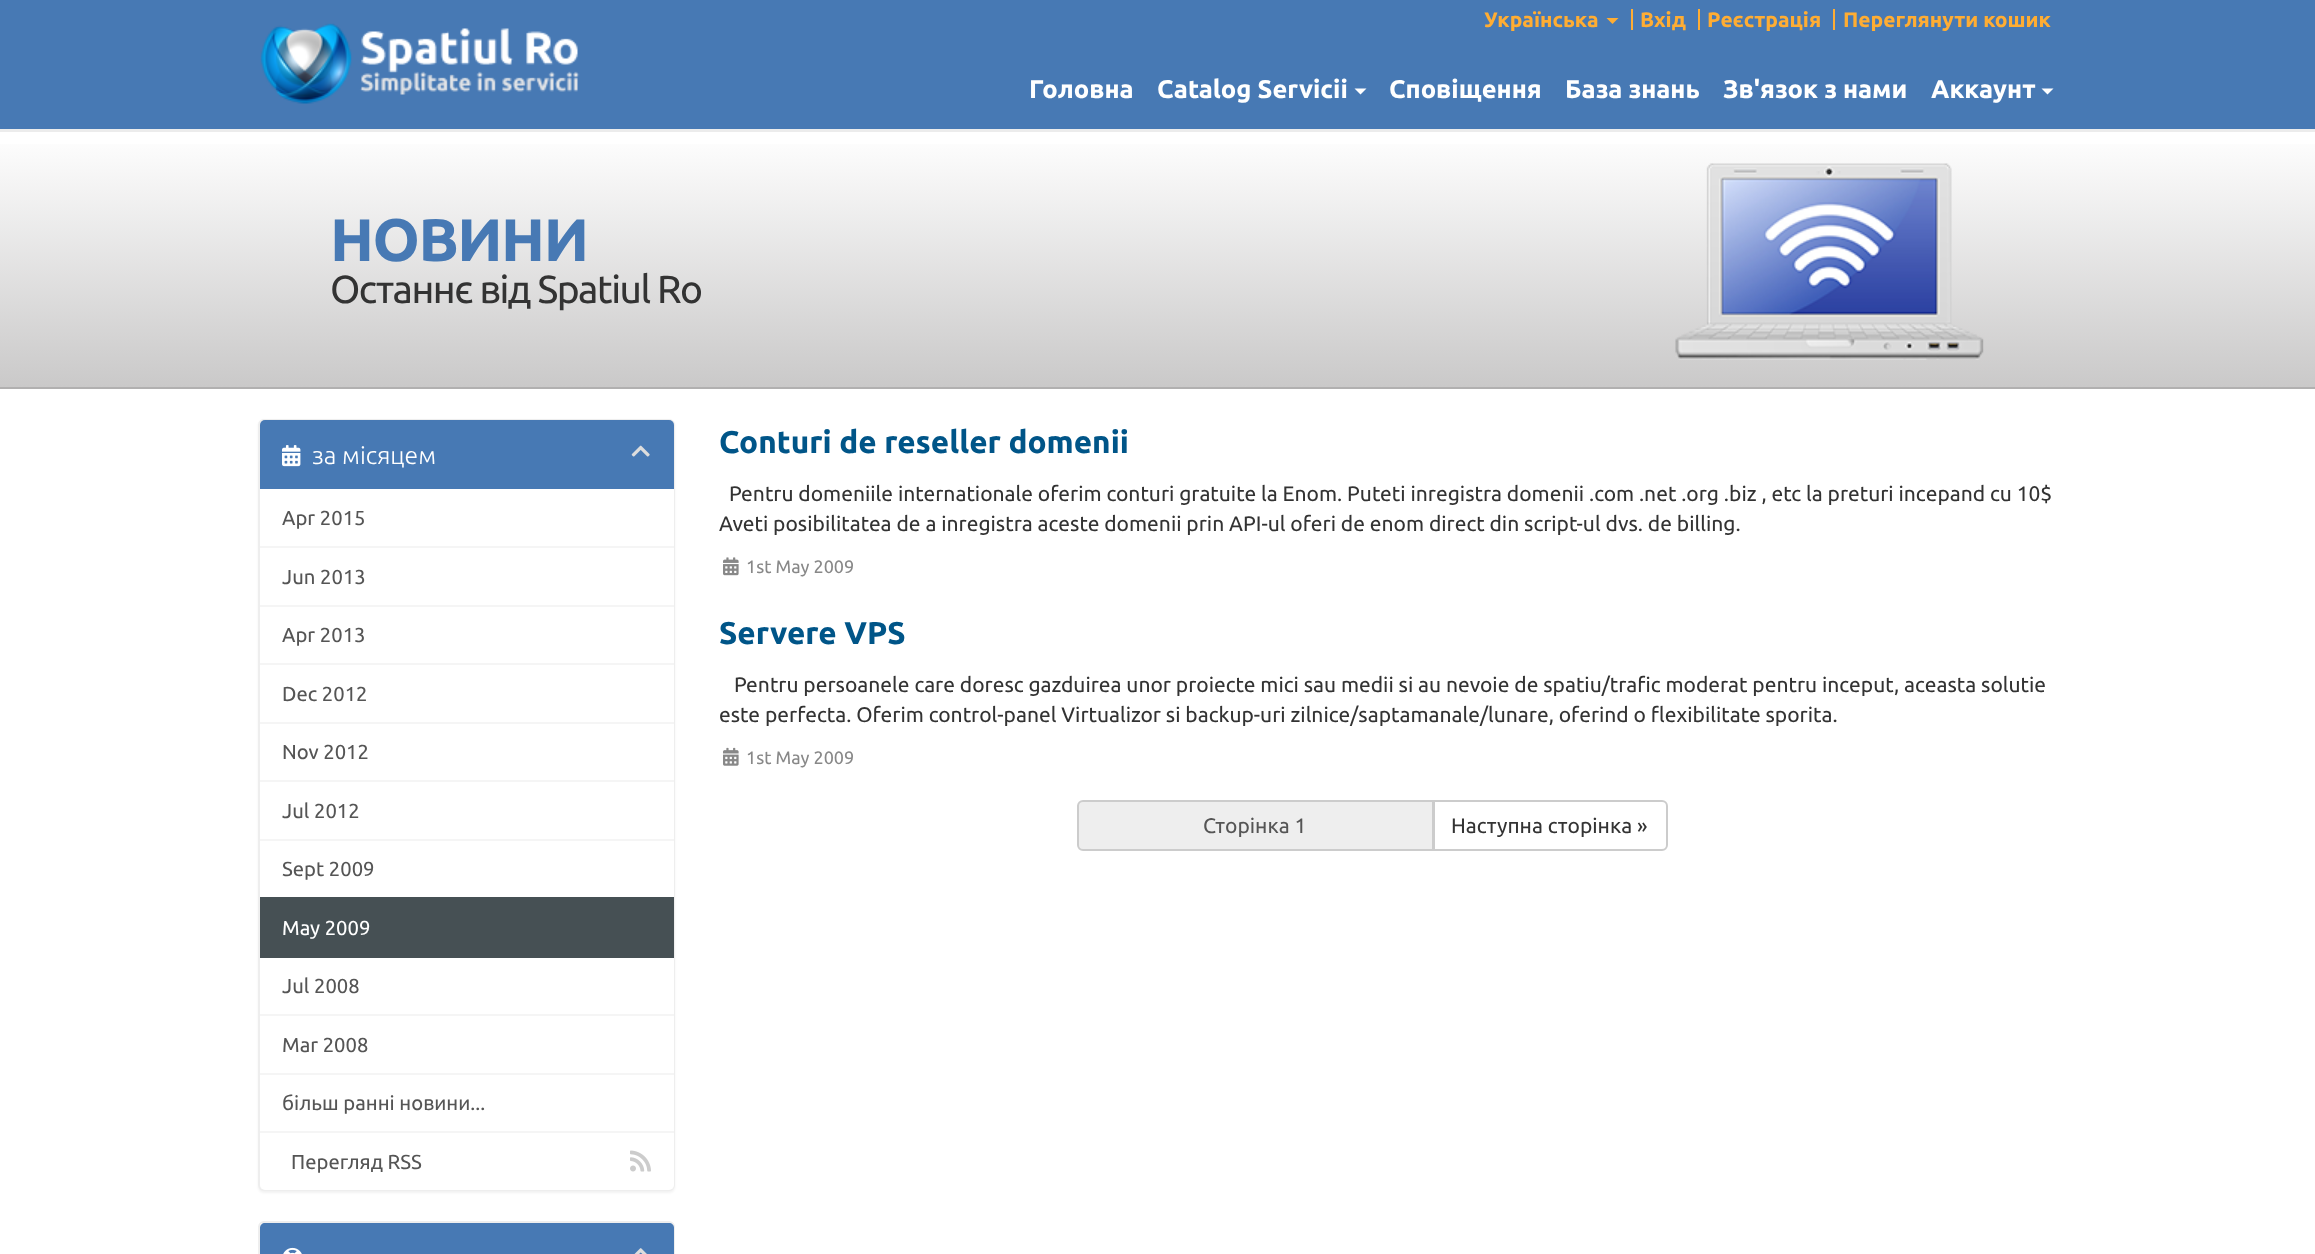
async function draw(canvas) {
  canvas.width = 2315;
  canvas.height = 1254;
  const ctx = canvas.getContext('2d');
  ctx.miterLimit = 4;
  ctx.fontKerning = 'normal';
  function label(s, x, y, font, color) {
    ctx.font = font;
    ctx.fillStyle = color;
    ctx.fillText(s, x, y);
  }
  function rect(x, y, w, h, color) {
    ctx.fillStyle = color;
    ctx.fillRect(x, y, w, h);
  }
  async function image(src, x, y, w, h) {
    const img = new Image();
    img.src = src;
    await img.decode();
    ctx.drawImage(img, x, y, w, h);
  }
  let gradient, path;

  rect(0, 0, 2315, 1254, '#fff');
  rect(0, 0, 2315, 129, '#4779b4');
  rect(0, 129, 2315, 3, '#ececec');
  await image('assets/img1.png', 260, 23, 320, 81);
  label('Українська', 1484, 27, 'bold 21px Ubuntu', '#ffad33');
  path = new Path2D('M1606.5 18H1618.5L1612.5 24Z');
  ctx.fill(path);
  rect(1631, 9, 2, 21, '#ffad33');
  label('Вхід', 1640, 27, 'bold 21px Ubuntu', '#ffad33');
  rect(1698, 9, 2, 21, '#ffad33');
  label('Реєстрація', 1707, 27, 'bold 21px Ubuntu', '#ffad33');
  rect(1833, 9, 2, 21, '#ffad33');
  label('Переглянути кошик', 1843, 27, 'bold 21px Ubuntu', '#ffad33');
  label('Головна', 1029, 98, 'bold 25.5px Ubuntu', '#fff');
  label('Catalog Servicii', 1157, 98, 'bold 25.5px Ubuntu', '#fff');
  path = new Path2D('M1354.5 88.5H1366.5L1360.5 94.5Z');
  ctx.fill(path);
  label('Сповіщення', 1389, 98, 'bold 25.5px Ubuntu', '#fff');
  label('База знань', 1565, 98, 'bold 25.5px Ubuntu', '#fff');
  label('Зв\'язок з нами', 1723, 98, 'bold 25.5px Ubuntu', '#fff');
  label('Аккаунт', 1931, 98, 'bold 25.5px Ubuntu', '#fff');
  path = new Path2D('M2041.5 88.5H2053.5L2047.5 94.5Z');
  ctx.fill(path);
  gradient = ctx.createLinearGradient(1158, 132, 1158, 387);
  gradient.addColorStop(0, '#fff');
  gradient.addColorStop(1, '#cac9c9');
  ctx.fillStyle = gradient;
  ctx.fillRect(0, 144, 2315, 243);
  rect(0, 387, 2315, 2, '#b1b0b0');
  await image('assets/img2.png', 1675, 163, 309, 197);
  ctx.letterSpacing = '-1.5px';
  label('НОВИНИ', 330, 261, 'bold 60px Ubuntu', '#4779b4');
  label('Останнє від Spatiul Ro', 330, 303, '39px Ubuntu', '#333');
  ctx.fillStyle = '#0000000d';
  ctx.filter = 'blur(1px)';
  ctx.beginPath();
  ctx.roundRect(258, 420, 417, 773, 6);
  ctx.fill();
  ctx.filter = 'none';
  ctx.beginPath();
  ctx.roundRect(259, 420, 415, 770, 5);
  ctx.strokeStyle = '#eee';
  ctx.lineWidth = 2;
  ctx.stroke();
  ctx.fillStyle = '#4779b4';
  ctx.beginPath();
  ctx.roundRect(260, 420, 414, 69, [5, 5, 0, 0]);
  ctx.fill();
  await image('assets/img3.png', 282, 445, 19, 22);
  ctx.letterSpacing = '0px';
  label('за місяцем', 312, 464, '300 24.75px Ubuntu', '#fff');
  await image('assets/img4.png', 631, 445, 19, 12);
  rect(260, 489, 414, 57, '#fff');
  rect(260, 546, 414, 2, '#f5f5f5');
  label('Apr 2015', 282, 525, '20.25px Ubuntu', '#555');
  rect(260, 548, 414, 57, '#fff');
  label('Jun 2013', 282, 584, '20.25px Ubuntu', '#555');
  rect(260, 607, 414, 56, '#fff');
  rect(260, 605, 414, 2, '#f5f5f5');
  rect(260, 663, 414, 2, '#f5f5f5');
  label('Apr 2013', 282, 642, '20.25px Ubuntu', '#555');
  rect(260, 665, 414, 57, '#fff');
  label('Dec 2012', 282, 701, '20.25px Ubuntu', '#555');
  rect(260, 724, 414, 56, '#fff');
  rect(260, 722, 414, 2, '#f5f5f5');
  rect(260, 780, 414, 2, '#f5f5f5');
  label('Nov 2012', 282, 759, '20.25px Ubuntu', '#555');
  rect(260, 782, 414, 57, '#fff');
  label('Jul 2012', 282, 818, '20.25px Ubuntu', '#555');
  rect(260, 841, 414, 56, '#fff');
  rect(260, 839, 414, 2, '#f5f5f5');
  label('Sept 2009', 282, 876, '20.25px Ubuntu', '#555');
  rect(260, 897, 414, 61, '#465054');
  label('May 2009', 282, 935, '20.25px Ubuntu', '#fff');
  rect(260, 958, 414, 56, '#fff');
  rect(260, 1014, 414, 2, '#f5f5f5');
  label('Jul 2008', 282, 993, '20.25px Ubuntu', '#555');
  rect(260, 1016, 414, 57, '#fff');
  label('Mar 2008', 282, 1052, '20.25px Ubuntu', '#555');
  rect(260, 1075, 414, 56, '#fff');
  rect(260, 1073, 414, 2, '#f5f5f5');
  label('більш ранні новини...', 282, 1110, '20.25px Ubuntu', '#555');
  ctx.fillStyle = '#fff';
  ctx.beginPath();
  ctx.roundRect(260, 1131, 414, 59, [0, 0, 5, 5]);
  ctx.fill();
  rect(260, 1131, 414, 2, '#f5f5f5');
  label('Перегляд RSS', 291, 1169, '20.25px Ubuntu', '#555');
  await image('assets/img5.png', 630, 1150, 21, 22);
  label('Conturi de reseller domenii', 719, 453, 'bold 31.5px Ubuntu', '#058');
  label('Pentru domeniile internationale oferim conturi gratuite la Enom. Puteti inregistra domenii .com .net .org .biz , etc la preturi incepand cu 10$', 729, 501, '21px Ubuntu', '#333');
  label('Aveti posibilitatea de a inregistra aceste domenii prin API-ul oferi de enom direct din script-ul dvs. de billing.', 719, 531, '21px Ubuntu', '#333');
  await image('assets/img6.png', 723, 557, 16, 19);
  label('1st May 2009', 746, 573, '18px Ubuntu', '#888');
  label('Servere VPS', 719, 644, 'bold 31.5px Ubuntu', '#058');
  label('Pentru persoanele care doresc gazduirea unor proiecte mici sau medii si au nevoie de spatiu/trafic moderat pentru inceput, aceasta solutie', 734, 692, '21px Ubuntu', '#333');
  label('este perfecta. Oferim control-panel Virtualizor si backup-uri zilnice/saptamanale/lunare, oferind o flexibilitate sporita.', 719, 722, '21px Ubuntu', '#333');
  await image('assets/img7.png', 723, 747, 16, 19);
  label('1st May 2009', 746, 764, '18px Ubuntu', '#888');
  ctx.fillStyle = '#eee';
  ctx.beginPath();
  ctx.roundRect(1078, 801, 355, 49, [5, 0, 0, 5]);
  ctx.fill();
  ctx.strokeStyle = '#ccc';
  ctx.stroke();
  label('Сторінка 1', 1203, 833, '21px Ubuntu', '#555');
  ctx.fillStyle = '#fff';
  ctx.beginPath();
  ctx.roundRect(1434, 801, 233, 49, [0, 5, 5, 0]);
  ctx.fill();
  ctx.stroke();
  label('Наступна сторінка »', 1451, 833, '21px Ubuntu', '#333');
  ctx.beginPath();
  ctx.roundRect(259, 1222, 415, 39, 5);
  ctx.strokeStyle = '#eee';
  ctx.stroke();
  ctx.fillStyle = '#4779b4';
  path = new Path2D('M265 1223H669C672 1223 674 1225 674 1228V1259H260V1228C260 1225 262 1223 265 1223Z');
  ctx.fill(path);
  await image('assets/img8.png', 283, 1247, 19, 7);
  await image('assets/img9.png', 634, 1248, 13, 6);
}

draw(document.querySelector('canvas'));
